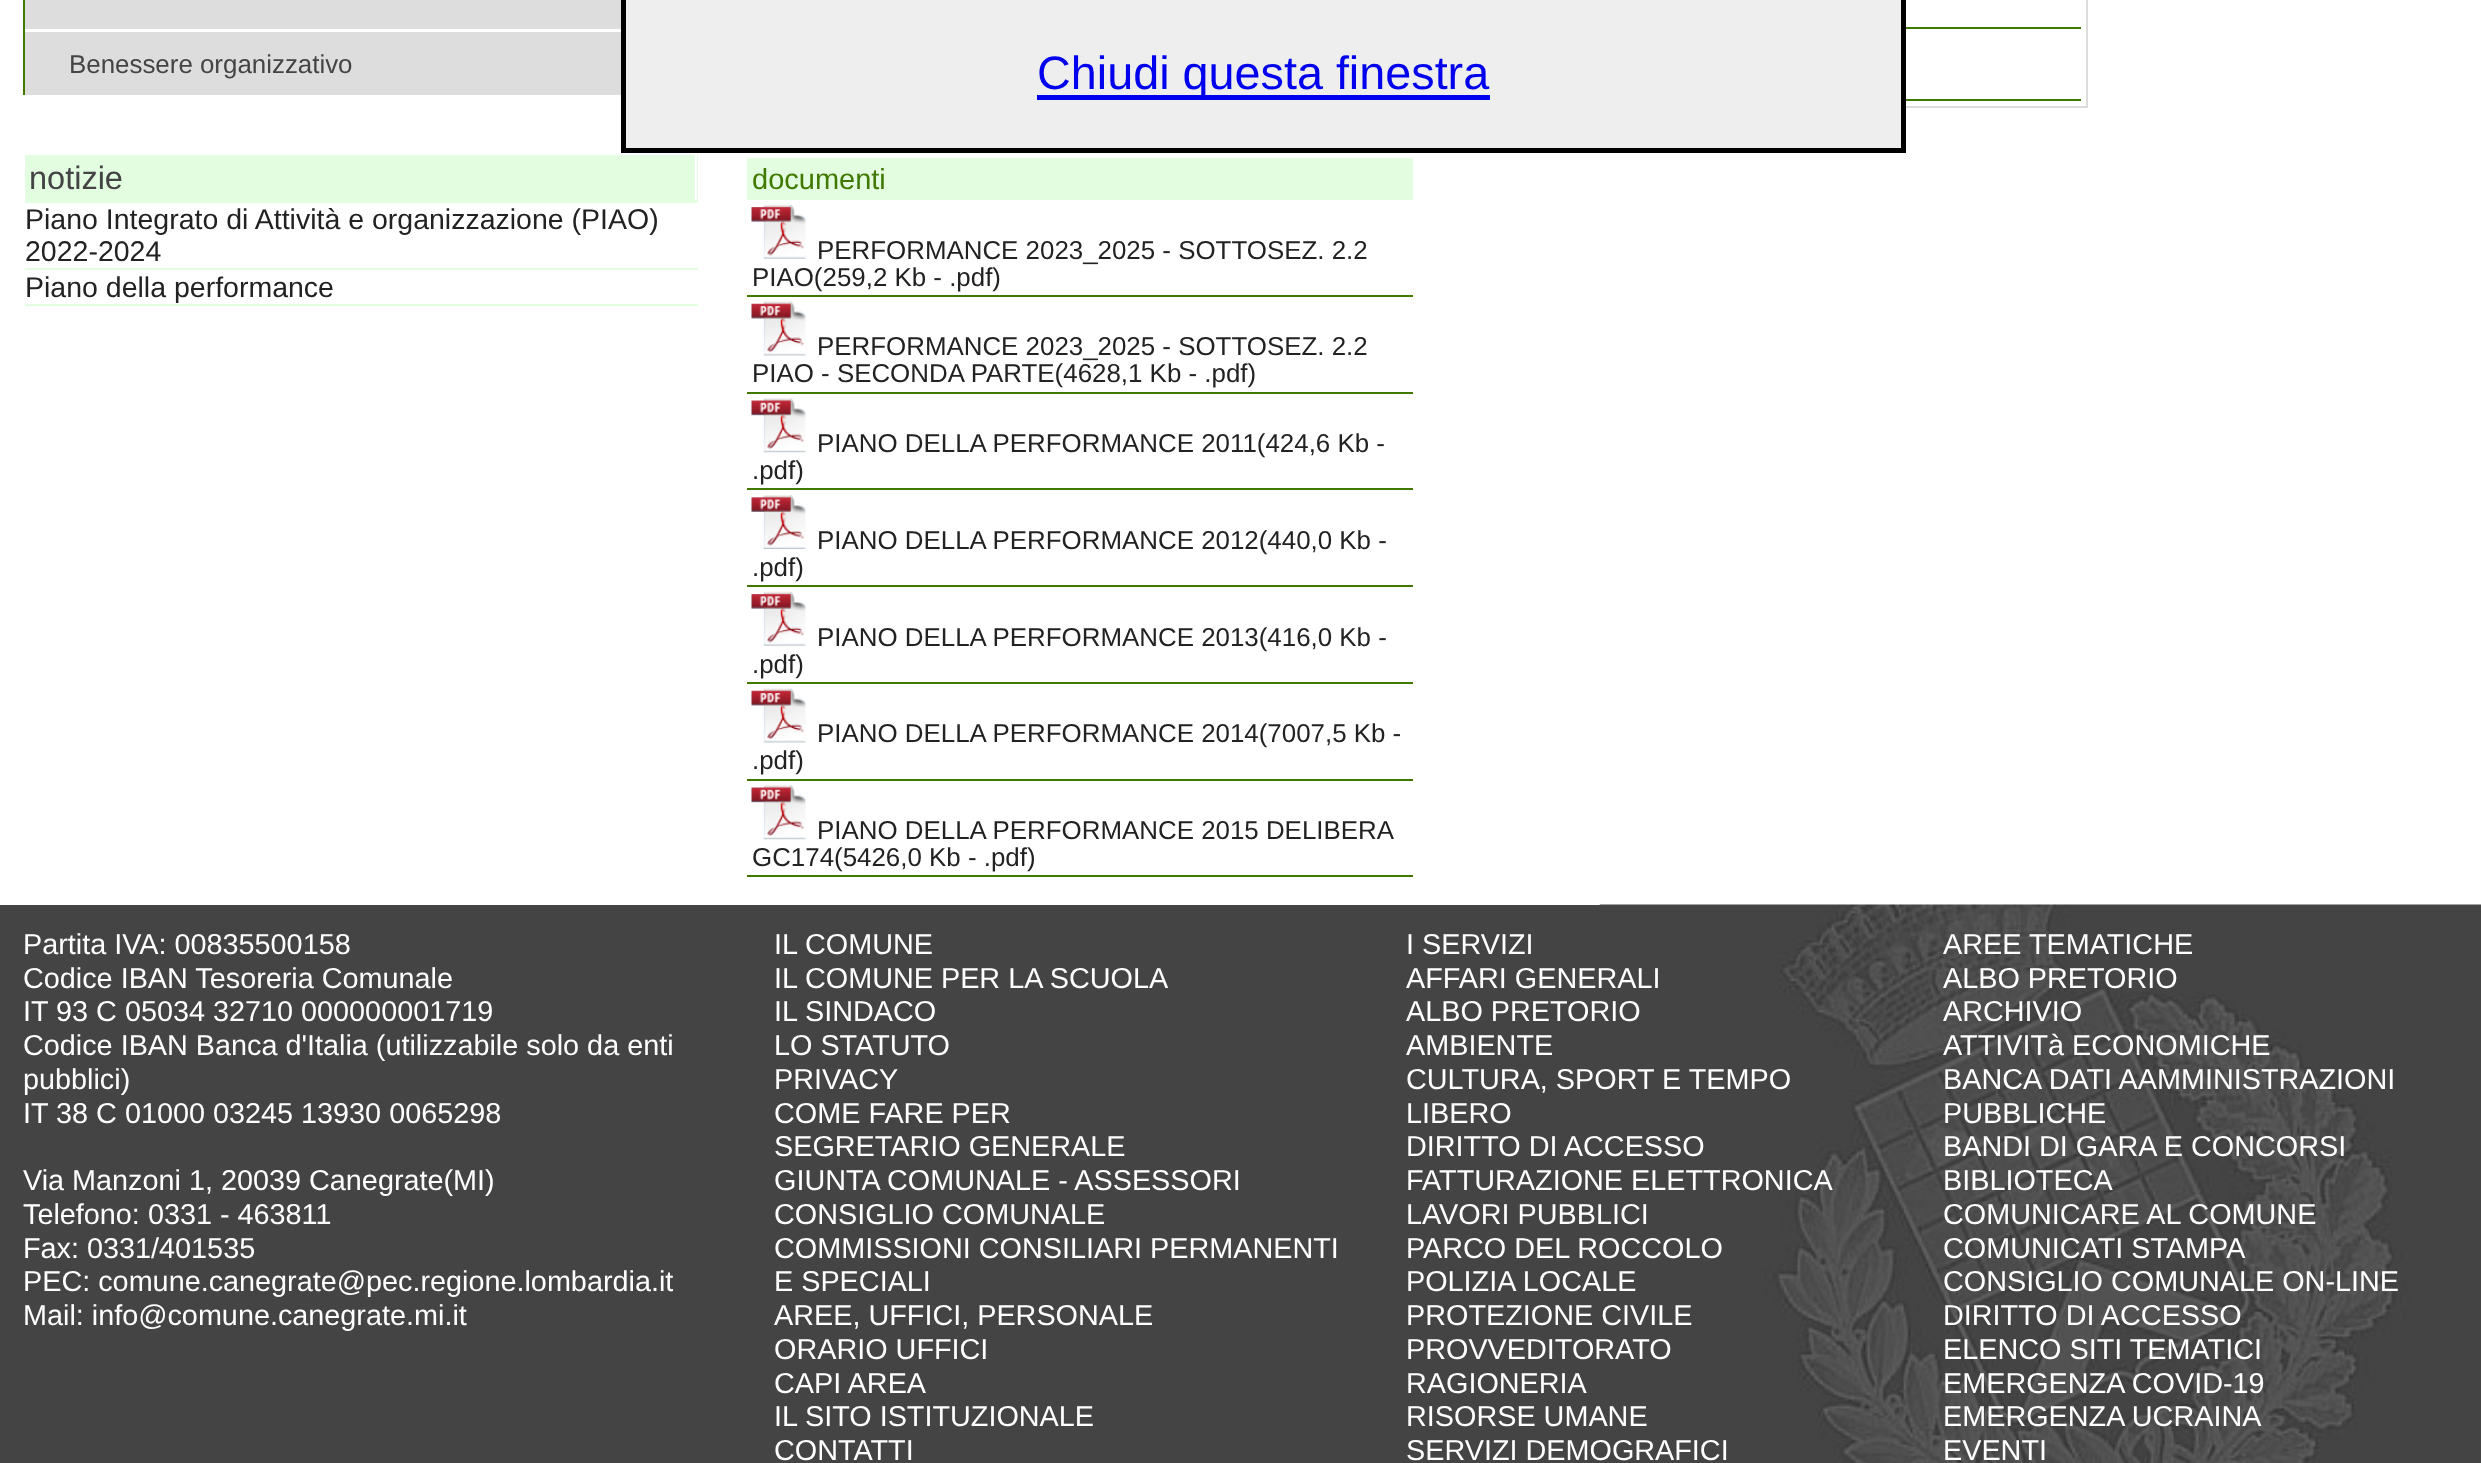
async function draw(canvas) {
  canvas.width = 2481;
  canvas.height = 1463;
  const ctx = canvas.getContext('2d');
  ctx.miterLimit = 4;
  ctx.fontKerning = 'normal';
  function label(s, x, y, font, color) {
    ctx.font = font;
    ctx.fillStyle = color;
    ctx.fillText(s, x, y);
  }
  function rect(x, y, w, h, color) {
    ctx.fillStyle = color;
    ctx.fillRect(x, y, w, h);
  }
  async function image(src, x, y, w, h) {
    const img = new Image();
    img.src = src;
    await img.decode();
    ctx.drawImage(img, x, y, w, h);
  }

  rect(0, 0, 2481, 1463, '#fff');
  rect(23, 0, 2, 95, '#407800');
  rect(25, 0, 596, 29, '#ddd');
  rect(25, 32, 596, 63, '#ddd');
  label('Benessere organizzativo', 69, 73, '25.9px Liberation Sans', '#444');
  ctx.strokeStyle = '#ddd';
  ctx.lineWidth = 2;
  ctx.strokeRect(744, -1, 1343, 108);
  rect(1906, 27, 175, 2, '#407800');
  rect(1906, 99, 175, 2, '#407800');
  rect(25, 155, 673, 48, '#e3fde0');
  rect(695, 153, 2, 50, '#fff');
  rect(23, 200, 675, 2, '#e3fde0');
  rect(23, 200, 2, 3, '#fff');
  label('notizie', 29, 189, '32.5px Liberation Sans', '#444');
  rect(23, 268, 675, 2, '#e3fde0');
  rect(23, 268, 2, 2, '#fff');
  label('Piano Integrato di Attività e organizzazione (PIAO)', 25, 229, '28.5px Liberation Sans', '#222');
  label('2022-2024', 25, 261, '28.5px Liberation Sans', '#222');
  rect(23, 304, 675, 2, '#e3fde0');
  rect(23, 304, 2, 2, '#fff');
  label('Piano della performance', 25, 297, '28.5px Liberation Sans', '#222');
  rect(747, 158, 666, 42, '#e3fde0');
  label('documenti', 752, 189, '29px Liberation Sans', '#407800');
  rect(747, 295, 666, 2, '#407800');
  await image('assets/img1.png', 751, 204, 55, 55);
  label('PERFORMANCE 2023_2025 - SOTTOSEZ. 2.2', 817, 259, '25.9px Liberation Sans', '#222');
  label('PIAO(259,2 Kb - .pdf)', 752, 286, '25.9px Liberation Sans', '#222');
  rect(747, 392, 666, 2, '#407800');
  await image('assets/img2.png', 751, 301, 55, 55);
  label('PERFORMANCE 2023_2025 - SOTTOSEZ. 2.2', 817, 355, '25.9px Liberation Sans', '#222');
  label('PIAO - SECONDA PARTE(4628,1 Kb - .pdf)', 752, 382, '25.9px Liberation Sans', '#222');
  rect(747, 488, 666, 2, '#407800');
  await image('assets/img3.png', 751, 398, 55, 55);
  label('PIANO DELLA PERFORMANCE 2011(424,6 Kb -', 817, 452, '25.9px Liberation Sans', '#222');
  label('.pdf)', 752, 479, '25.9px Liberation Sans', '#222');
  rect(747, 585, 666, 2, '#407800');
  await image('assets/img4.png', 751, 495, 55, 54);
  label('PIANO DELLA PERFORMANCE 2012(440,0 Kb -', 817, 549, '25.9px Liberation Sans', '#222');
  label('.pdf)', 752, 576, '25.9px Liberation Sans', '#222');
  rect(747, 682, 666, 2, '#407800');
  await image('assets/img1.png', 751, 591, 55, 55);
  label('PIANO DELLA PERFORMANCE 2013(416,0 Kb -', 817, 646, '25.9px Liberation Sans', '#222');
  label('.pdf)', 752, 673, '25.9px Liberation Sans', '#222');
  rect(747, 779, 666, 2, '#407800');
  await image('assets/img2.png', 751, 688, 55, 55);
  label('PIANO DELLA PERFORMANCE 2014(7007,5 Kb -', 817, 742, '25.9px Liberation Sans', '#222');
  label('.pdf)', 752, 769, '25.9px Liberation Sans', '#222');
  rect(747, 875, 666, 2, '#407800');
  await image('assets/img3.png', 751, 785, 55, 55);
  label('PIANO DELLA PERFORMANCE 2015 DELIBERA', 817, 839, '25.9px Liberation Sans', '#222');
  label('GC174(5426,0 Kb - .pdf)', 752, 866, '25.9px Liberation Sans', '#222');
  ctx.fillStyle = '#eee';
  ctx.beginPath();
  ctx.rect(623.5, -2.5, 1280, 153);
  ctx.fill();
  ctx.strokeStyle = '#000';
  ctx.lineWidth = 5;
  ctx.stroke();
  rect(1037, 95, 453, 5, '#00e');
  label('Chiudi questa finestra', 1037, 89, '46.75px Liberation Sans', '#00e');
  rect(0, 905, 1600, 558, '#444');
  await image('assets/img5.png', 1599, 904, 882, 559);
  label('Partita IVA: 00835500158', 23, 954, '28.8px Liberation Sans', '#fff');
  label('Codice IBAN Tesoreria Comunale', 23, 988, '28.8px Liberation Sans', '#fff');
  label('IT 93 C 05034 32710 000000001719', 23, 1021, '28.8px Liberation Sans', '#fff');
  label('Codice IBAN Banca d\'Italia (utilizzabile solo da enti', 23, 1055, '28.8px Liberation Sans', '#fff');
  label('pubblici)', 23, 1089, '28.8px Liberation Sans', '#fff');
  label('IT 38 C 01000 03245 13930 0065298', 23, 1123, '28.8px Liberation Sans', '#fff');
  label('Via Manzoni 1, 20039 Canegrate(MI)', 23, 1190, '28.8px Liberation Sans', '#fff');
  label('Telefono: 0331 - 463811', 23, 1224, '28.8px Liberation Sans', '#fff');
  label('Fax: 0331/401535', 23, 1258, '28.8px Liberation Sans', '#fff');
  label('PEC: comune.canegrate@pec.regione.lombardia.it', 23, 1291, '28.8px Liberation Sans', '#fff');
  label('Mail: info@comune.canegrate.mi.it', 23, 1325, '28.8px Liberation Sans', '#fff');
  label('IL COMUNE', 774, 954, '28.8px Liberation Sans', '#fff');
  label('IL COMUNE PER LA SCUOLA', 774, 988, '28.8px Liberation Sans', '#fff');
  label('IL SINDACO', 774, 1021, '28.8px Liberation Sans', '#fff');
  label('LO STATUTO', 774, 1055, '28.8px Liberation Sans', '#fff');
  label('PRIVACY', 774, 1089, '28.8px Liberation Sans', '#fff');
  label('COME FARE PER', 774, 1123, '28.8px Liberation Sans', '#fff');
  label('SEGRETARIO GENERALE', 774, 1156, '28.8px Liberation Sans', '#fff');
  label('GIUNTA COMUNALE - ASSESSORI', 774, 1190, '28.8px Liberation Sans', '#fff');
  label('CONSIGLIO COMUNALE', 774, 1224, '28.8px Liberation Sans', '#fff');
  label('COMMISSIONI CONSILIARI PERMANENTI', 774, 1258, '28.8px Liberation Sans', '#fff');
  label('E SPECIALI', 774, 1291, '28.8px Liberation Sans', '#fff');
  label('AREE, UFFICI, PERSONALE', 774, 1325, '28.8px Liberation Sans', '#fff');
  label('ORARIO UFFICI', 774, 1359, '28.8px Liberation Sans', '#fff');
  label('CAPI AREA', 774, 1393, '28.8px Liberation Sans', '#fff');
  label('IL SITO ISTITUZIONALE', 774, 1426, '28.8px Liberation Sans', '#fff');
  label('CONTATTI', 774, 1460, '28.8px Liberation Sans', '#fff');
  label('I SERVIZI', 1406, 954, '28.8px Liberation Sans', '#fff');
  label('AFFARI GENERALI', 1406, 988, '28.8px Liberation Sans', '#fff');
  label('ALBO PRETORIO', 1406, 1021, '28.8px Liberation Sans', '#fff');
  label('AMBIENTE', 1406, 1055, '28.8px Liberation Sans', '#fff');
  label('CULTURA, SPORT E TEMPO', 1406, 1089, '28.8px Liberation Sans', '#fff');
  label('LIBERO', 1406, 1123, '28.8px Liberation Sans', '#fff');
  label('DIRITTO DI ACCESSO', 1406, 1156, '28.8px Liberation Sans', '#fff');
  label('FATTURAZIONE ELETTRONICA', 1406, 1190, '28.8px Liberation Sans', '#fff');
  label('LAVORI PUBBLICI', 1406, 1224, '28.8px Liberation Sans', '#fff');
  label('PARCO DEL ROCCOLO', 1406, 1258, '28.8px Liberation Sans', '#fff');
  label('POLIZIA LOCALE', 1406, 1291, '28.8px Liberation Sans', '#fff');
  label('PROTEZIONE CIVILE', 1406, 1325, '28.8px Liberation Sans', '#fff');
  label('PROVVEDITORATO', 1406, 1359, '28.8px Liberation Sans', '#fff');
  label('RAGIONERIA', 1406, 1393, '28.8px Liberation Sans', '#fff');
  label('RISORSE UMANE', 1406, 1426, '28.8px Liberation Sans', '#fff');
  label('SERVIZI DEMOGRAFICI', 1406, 1460, '28.8px Liberation Sans', '#fff');
  label('AREE TEMATICHE', 1943, 954, '28.8px Liberation Sans', '#fff');
  label('ALBO PRETORIO', 1943, 988, '28.8px Liberation Sans', '#fff');
  label('ARCHIVIO', 1943, 1021, '28.8px Liberation Sans', '#fff');
  label('ATTIVITà ECONOMICHE', 1943, 1055, '28.8px Liberation Sans', '#fff');
  label('BANCA DATI AAMMINISTRAZIONI', 1943, 1089, '28.8px Liberation Sans', '#fff');
  label('PUBBLICHE', 1943, 1123, '28.8px Liberation Sans', '#fff');
  label('BANDI DI GARA E CONCORSI', 1943, 1156, '28.8px Liberation Sans', '#fff');
  label('BIBLIOTECA', 1943, 1190, '28.8px Liberation Sans', '#fff');
  label('COMUNICARE AL COMUNE', 1943, 1224, '28.8px Liberation Sans', '#fff');
  label('COMUNICATI STAMPA', 1943, 1258, '28.8px Liberation Sans', '#fff');
  label('CONSIGLIO COMUNALE ON-LINE', 1943, 1291, '28.8px Liberation Sans', '#fff');
  label('DIRITTO DI ACCESSO', 1943, 1325, '28.8px Liberation Sans', '#fff');
  label('ELENCO SITI TEMATICI', 1943, 1359, '28.8px Liberation Sans', '#fff');
  label('EMERGENZA COVID-19', 1943, 1393, '28.8px Liberation Sans', '#fff');
  label('EMERGENZA UCRAINA', 1943, 1426, '28.8px Liberation Sans', '#fff');
  label('EVENTI', 1943, 1460, '28.8px Liberation Sans', '#fff');
}

draw(document.querySelector('canvas'));
